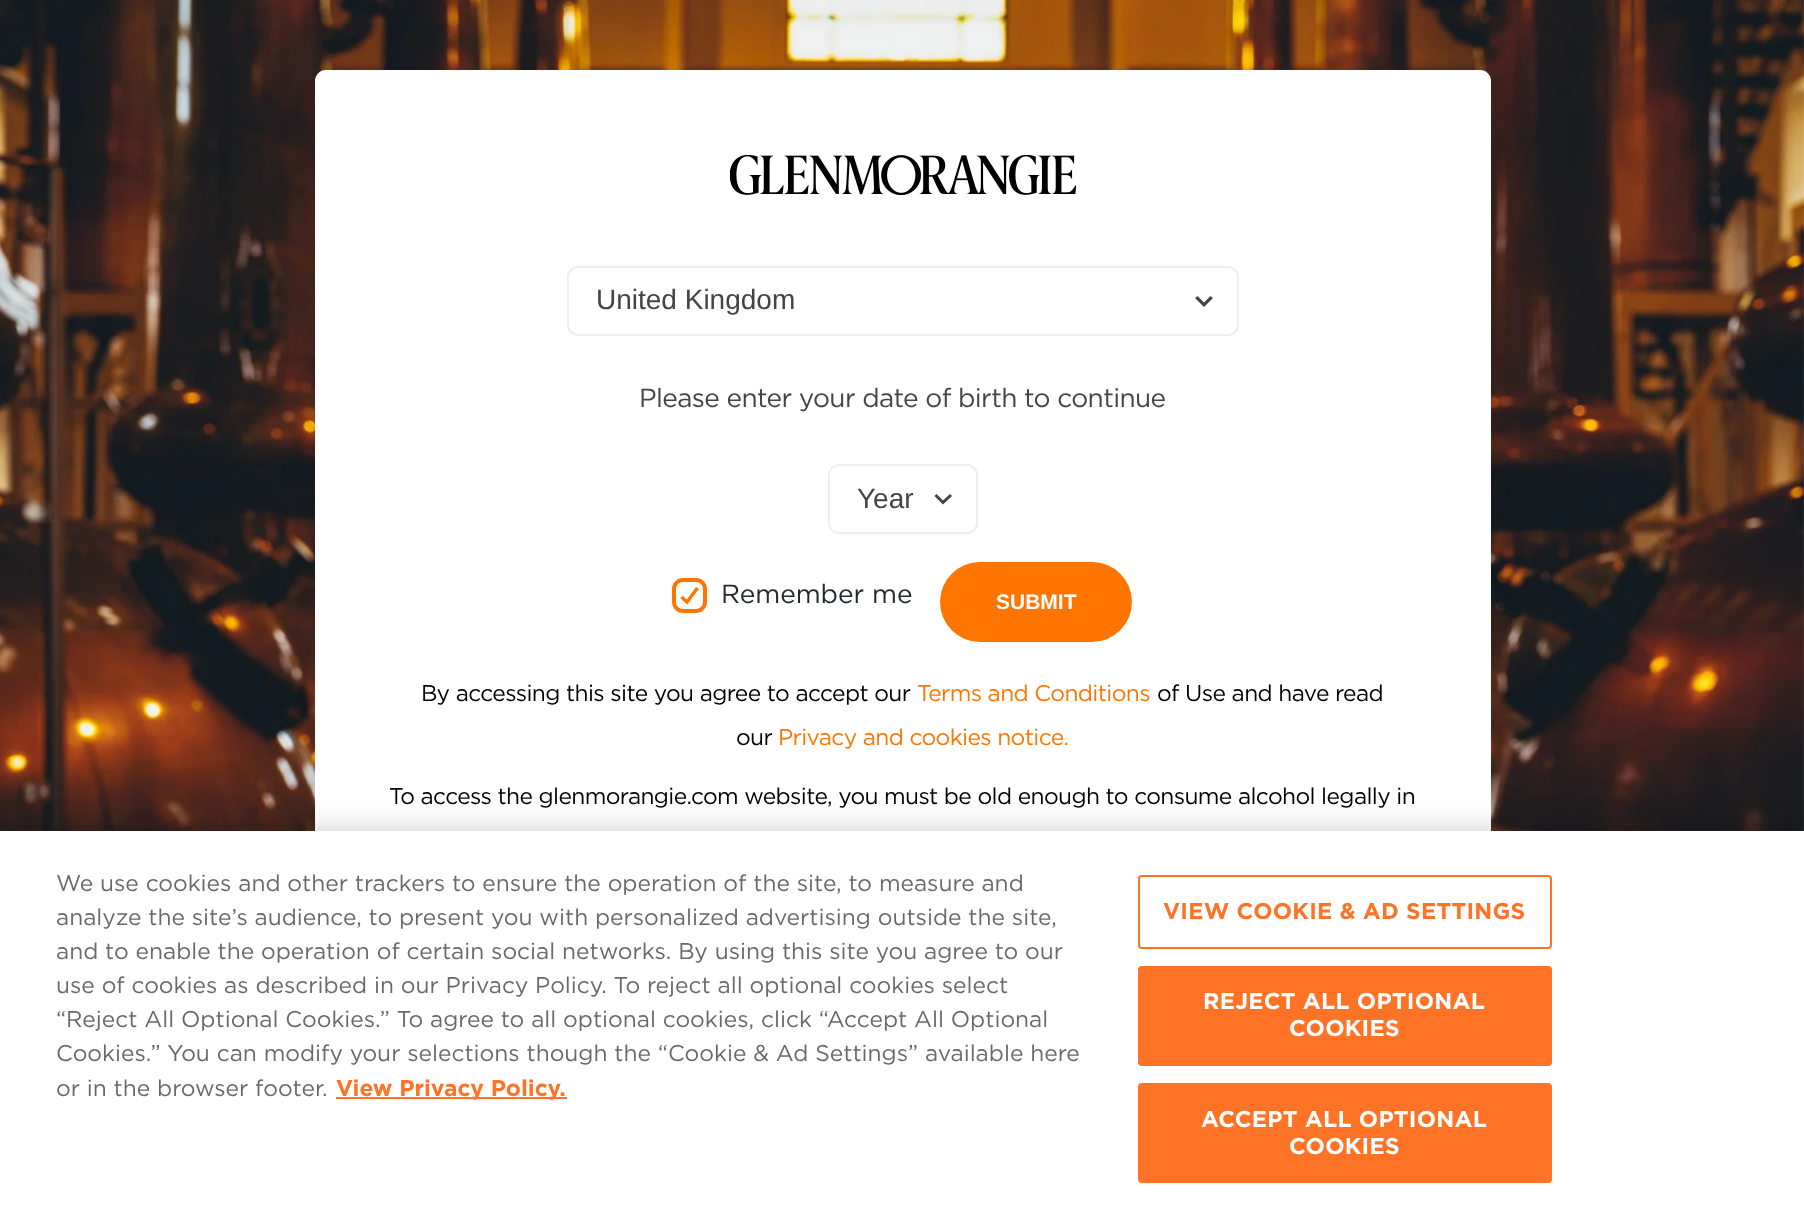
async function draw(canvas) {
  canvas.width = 1804;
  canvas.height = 1217;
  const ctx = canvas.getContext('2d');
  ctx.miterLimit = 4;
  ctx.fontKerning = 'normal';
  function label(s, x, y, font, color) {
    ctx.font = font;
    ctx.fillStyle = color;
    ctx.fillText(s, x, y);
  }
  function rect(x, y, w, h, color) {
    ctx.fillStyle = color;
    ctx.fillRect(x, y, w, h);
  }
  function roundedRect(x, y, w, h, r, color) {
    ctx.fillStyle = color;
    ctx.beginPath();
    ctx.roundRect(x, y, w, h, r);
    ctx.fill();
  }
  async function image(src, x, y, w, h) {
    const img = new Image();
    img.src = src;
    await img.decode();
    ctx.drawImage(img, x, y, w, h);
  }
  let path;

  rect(0, 0, 1804, 1217, '#fff');
  await image('assets/img1.png', 0, 0, 1804, 831);
  ctx.fillStyle = '#0000001a';
  ctx.filter = 'blur(13px)';
  ctx.beginPath();
  ctx.roundRect(320, 93, 1166, 1059, 5);
  ctx.fill();
  ctx.filter = 'none';
  roundedRect(315, 70, 1176, 1069, 11, '#fff');
  await image('assets/img2.png', 730, 155, 346, 40);
  ctx.beginPath();
  ctx.roundRect(568, 267, 670, 68, 10);
  ctx.strokeStyle = '#eee';
  ctx.lineWidth = 2;
  ctx.stroke();
  label('United Kingdom', 596, 309, '28px Liberation Sans', '#444');
  path = new Path2D('M1210.5 296L1204 302.5L1197.5 296L1195 298L1204 307L1213 298Z');
  ctx.fill(path);
  ctx.letterSpacing = '-0.6px';
  label('Please enter your date of birth to continue', 639, 407, '26.25px Gotham', '#444');
  ctx.beginPath();
  ctx.roundRect(829, 465, 148, 68, 10);
  ctx.stroke();
  ctx.letterSpacing = '0px';
  label('Year', 857, 508, '28px Liberation Sans', '#444');
  path = new Path2D('M950 494L943 500.5L936.5 494L934.5 496L943 504.5L952 496Z');
  ctx.fill(path);
  ctx.beginPath();
  ctx.roundRect(674, 580, 31, 31, 9);
  ctx.strokeStyle = '#ff7500';
  ctx.lineWidth = 4;
  ctx.stroke();
  path = new Path2D('M681.5 597L687 602L697.5 588');
  ctx.lineWidth = 3.5;
  ctx.stroke(path);
  label('Remember me', 721, 603, '26.25px Gotham', '#212a2f');
  roundedRect(940, 562, 192, 80, 40, '#ff7500');
  label('SUBMIT', 996, 609, 'bold 21px Liberation Sans', '#fff');
  ctx.letterSpacing = '-0.6px';
  label('By accessing this site you agree to accept our', 421, 701, '22.75px Gotham', '#000');
  label('Terms and Conditions', 917, 701, '22.75px Gotham', '#ff7500');
  label('of Use and have read', 1157, 701, '22.75px Gotham', '#000');
  label('our', 736, 745, '22.75px Gotham', '#000');
  label('Privacy and cookies notice.', 778, 745, '22.75px Gotham', '#ff7500');
  label('To access the glenmorangie.com website, you must be old enough to consume alcohol legally in', 389, 804, '22.75px Gotham', '#000');
  ctx.fillStyle = '#00000033';
  ctx.filter = 'blur(16px)';
  ctx.beginPath();
  ctx.rect(0, 831, 1804, 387);
  ctx.fill();
  ctx.filter = 'none';
  rect(0, 831, 1804, 386, '#fff');
  ctx.letterSpacing = '0px';
  label('We use cookies and other trackers to ensure the operation of the site, to measure and', 56, 891, '22.75px Gotham', '#696969');
  label('analyze the site’s audience, to present you with personalized advertising outside the site,', 56, 925, '22.75px Gotham', '#696969');
  label('and to enable the operation of certain social networks. By using this site you agree to our', 56, 959, '22.75px Gotham', '#696969');
  label('use of cookies as described in our Privacy Policy. To reject all optional cookies select', 56, 993, '22.75px Gotham', '#696969');
  label('“Reject All Optional Cookies.” To agree to all optional cookies, click “Accept All Optional', 56, 1027, '22.75px Gotham', '#696969');
  label('Cookies.” You can modify your selections though the “Cookie & Ad Settings” available here', 56, 1061, '22.75px Gotham', '#696969');
  label('or in the browser footer.', 56, 1096, '22.75px Gotham', '#696969');
  rect(336, 1097, 231, 2, '#ff7326');
  label('View Privacy Policy.', 336, 1096, 'bold 22.75px Gotham', '#ff7326');
  ctx.beginPath();
  ctx.roundRect(1139, 876, 412, 72, 3);
  ctx.strokeStyle = '#ff7326';
  ctx.lineWidth = 2;
  ctx.stroke();
  ctx.letterSpacing = '0.25px';
  label('VIEW COOKIE & AD SETTINGS', 1163, 919, 'bold 22.75px Gotham', '#ff7326');
  ctx.beginPath();
  ctx.roundRect(1139, 967, 412, 98, 3);
  ctx.fill();
  ctx.stroke();
  label('REJECT ALL OPTIONAL', 1203, 1009, 'bold 22.75px Gotham', '#fff');
  label('COOKIES', 1289, 1036, 'bold 22.75px Gotham', '#fff');
  ctx.fillStyle = '#ff7326';
  ctx.beginPath();
  ctx.roundRect(1139, 1084, 412, 98, 3);
  ctx.fill();
  ctx.stroke();
  label('ACCEPT ALL OPTIONAL', 1201, 1127, 'bold 22.75px Gotham', '#fff');
  label('COOKIES', 1289, 1154, 'bold 22.75px Gotham', '#fff');
}

draw(document.querySelector('canvas'));
